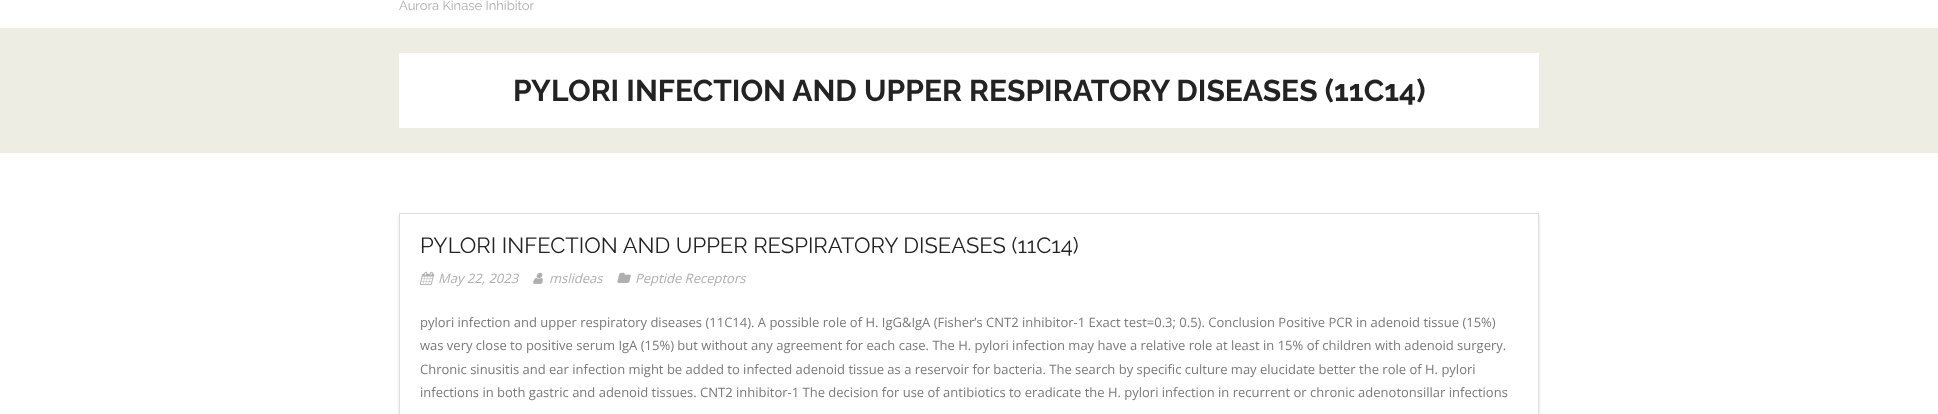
async function draw(canvas) {
  canvas.width = 1938;
  canvas.height = 414;
  const ctx = canvas.getContext('2d');
  ctx.miterLimit = 4;
  ctx.fontKerning = 'normal';
  function label(s, x, y, font, color) {
    ctx.font = font;
    ctx.fillStyle = color;
    ctx.fillText(s, x, y);
  }
  function rect(x, y, w, h, color) {
    ctx.fillStyle = color;
    ctx.fillRect(x, y, w, h);
  }
  async function image(src, x, y, w, h) {
    const img = new Image();
    img.src = src;
    await img.decode();
    ctx.drawImage(img, x, y, w, h);
  }
  let path;

  rect(0, 0, 1938, 414, '#fff');
  label('Aurora Kinase Inhibitor', 399, 10, '13px Raleway', '#afafaf');
  rect(0, 28, 1938, 125, '#eeede4');
  rect(399, 53, 1140, 75, '#fff');
  label('PYLORI INFECTION AND UPPER RESPIRATORY DISEASES (11C14)', 513, 101, 'bold 30px Raleway', '#232323');
  ctx.save();
  path = new Path2D('M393 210H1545V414H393ZM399 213H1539V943H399Z');
  ctx.clip(path, 'evenodd');
  ctx.fillStyle = '#23232326';
  ctx.filter = 'blur(1.5px)';
  ctx.beginPath();
  ctx.rect(399, 216, 1140, 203);
  ctx.fill();
  ctx.filter = 'none';
  ctx.restore();
  ctx.strokeStyle = '#dedede';
  ctx.strokeRect(399.5, 213.5, 1139, 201);
  label('PYLORI INFECTION AND UPPER RESPIRATORY DISEASES (11C14)', 420, 253, '22px Raleway', '#232323');
  await image('assets/img1.png', 419, 271, 16, 14);
  label('May 22, 2023', 438, 283, 'italic 13px Open Sans', '#afafaf');
  await image('assets/img2.png', 533, 272, 10, 12);
  label('mslideas', 549, 283, 'italic 13px Open Sans', '#afafaf');
  await image('assets/img3.png', 617, 272, 14, 11);
  label('Peptide Receptors', 635, 283, 'italic 13px Open Sans', '#afafaf');
  label('pylori infection and upper respiratory diseases (11C14). A possible role of H. IgG&IgA (Fisher’s CNT2 inhibitor-1 Exact test=0.3; 0.5). Conclusion Positive PCR in adenoid tissue (15%)', 420, 327, '13px Open Sans', '#7a7a7a');
  label('was very close to positive serum IgA (15%) but without any agreement for each case. The H. pylori infection may have a relative role at least in 15% of children with adenoid surgery.', 420, 350, '13px Open Sans', '#7a7a7a');
  label('Chronic sinusitis and ear infection might be added to infected adenoid tissue as a reservoir for bacteria. The search by specific culture may elucidate better the role of H. pylori', 420, 374, '13px Open Sans', '#7a7a7a');
  label('infections in both gastric and adenoid tissues. CNT2 inhibitor-1 The decision for use of antibiotics to eradicate the H. pylori infection in recurrent or chronic adenotonsillar infections', 420, 397, '13px Open Sans', '#7a7a7a');
}

draw(document.querySelector('canvas'));
